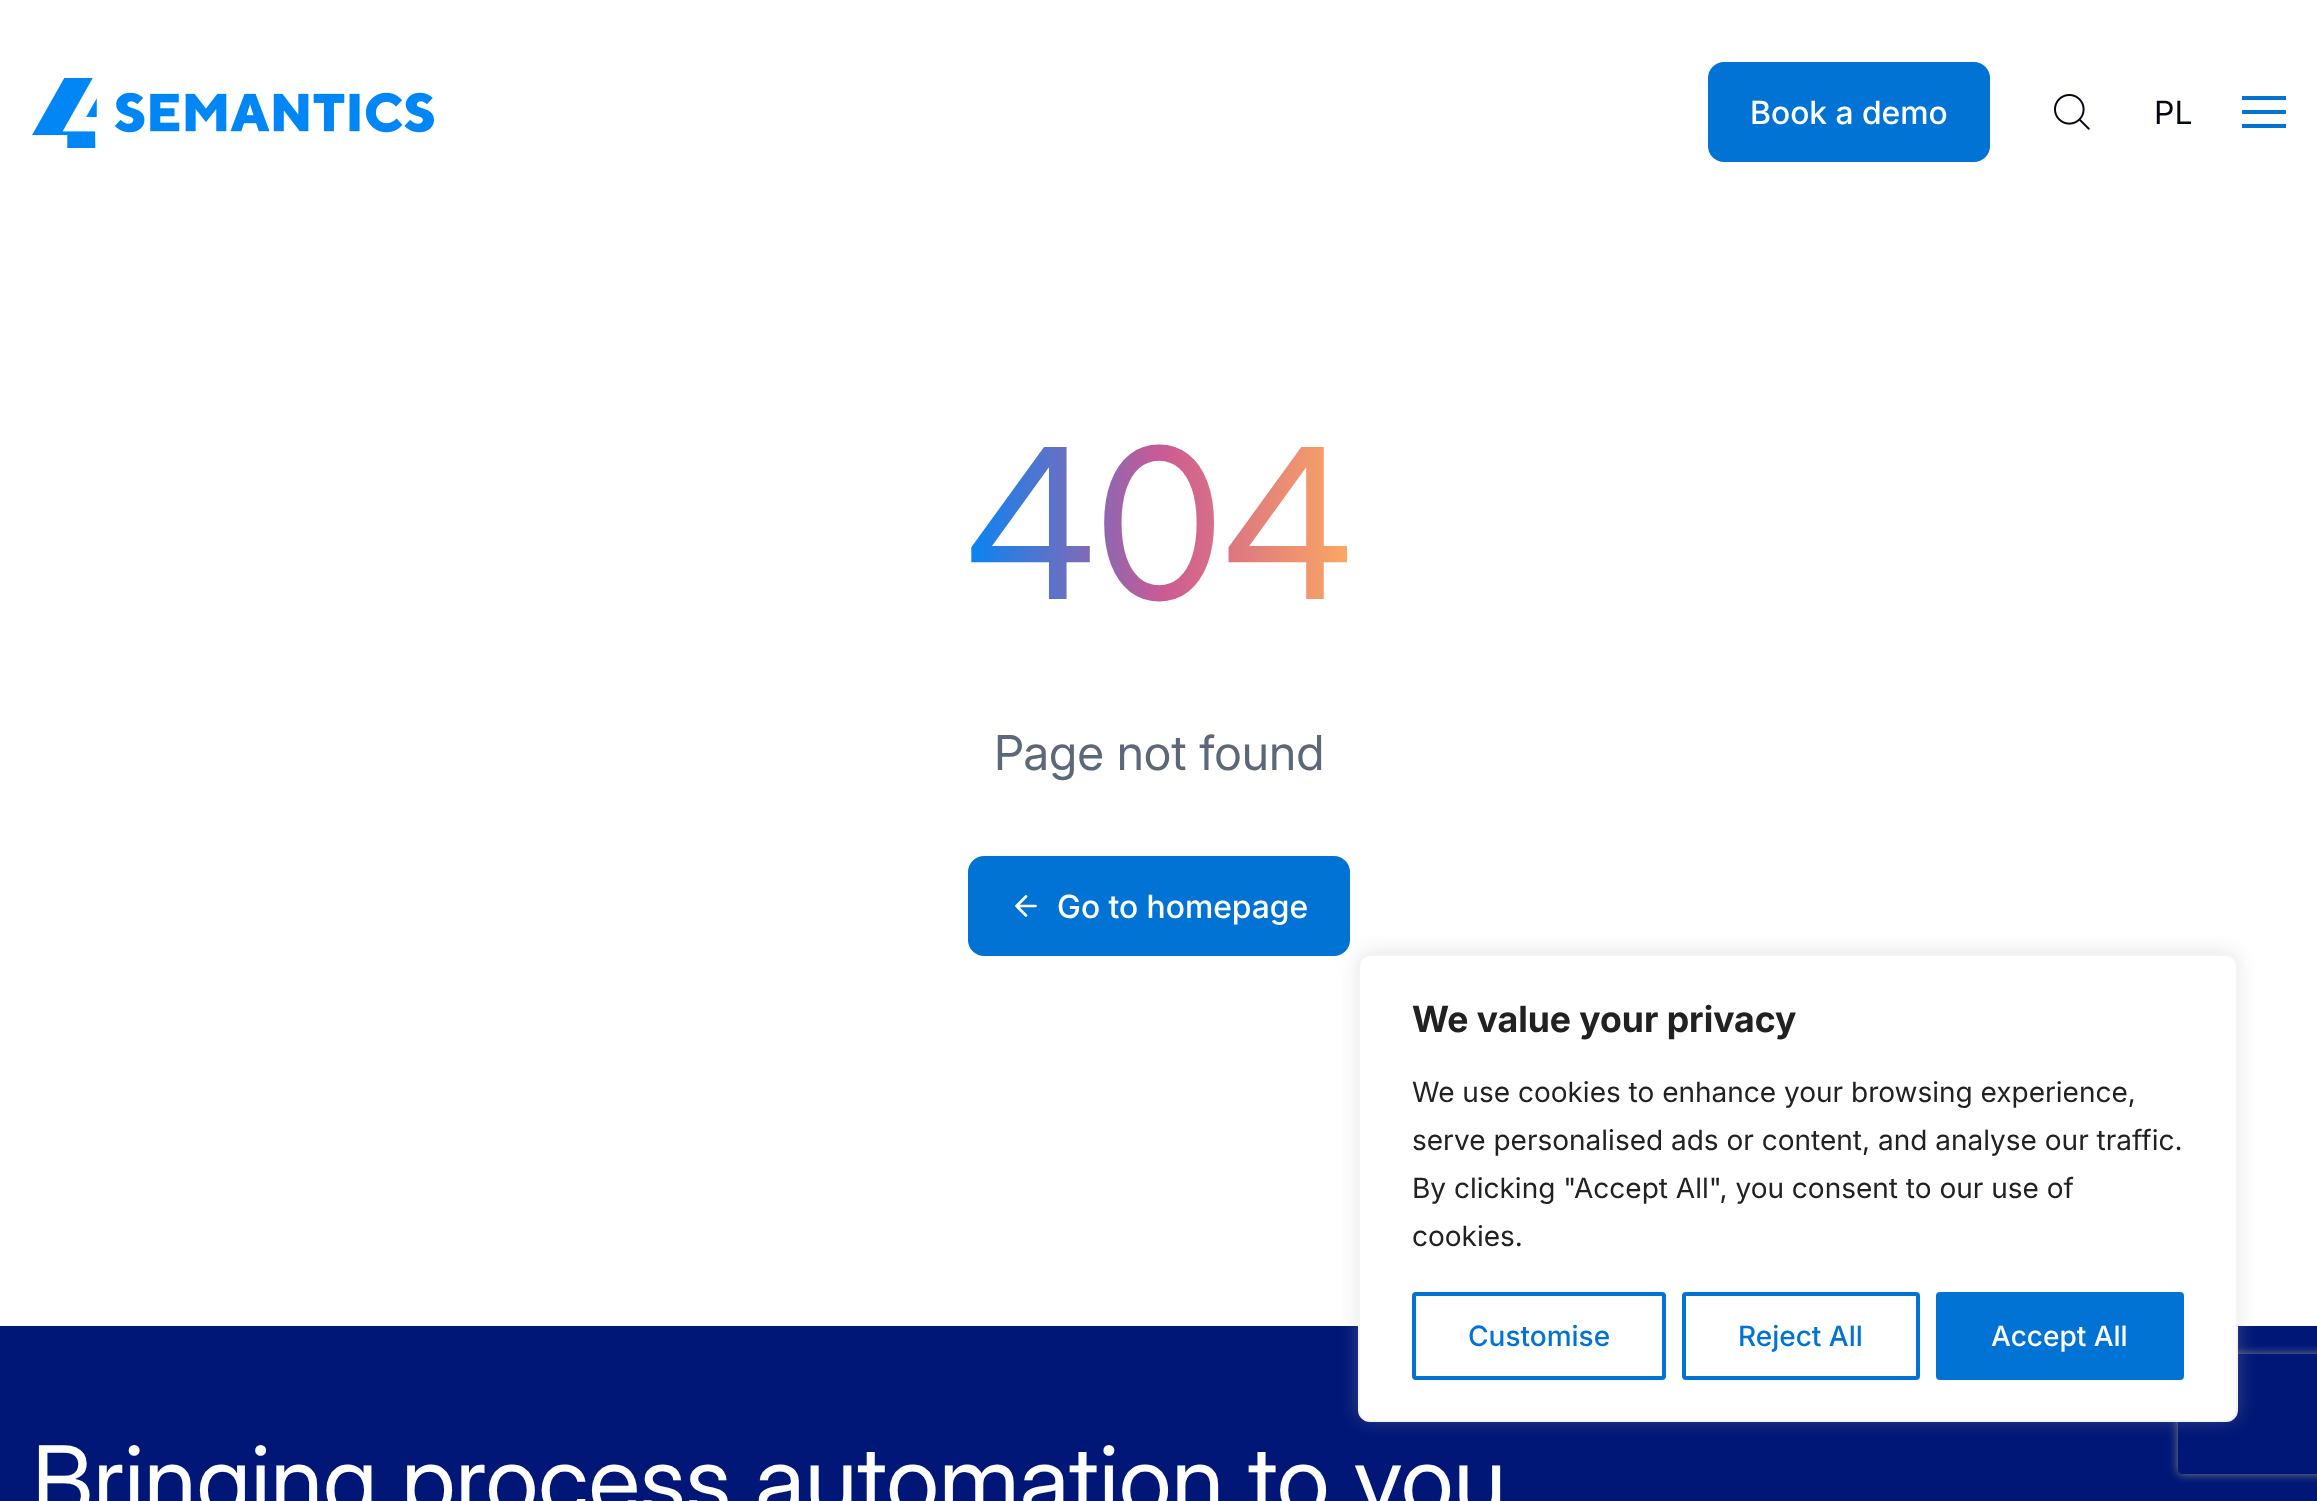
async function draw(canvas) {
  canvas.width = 2317;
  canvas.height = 1501;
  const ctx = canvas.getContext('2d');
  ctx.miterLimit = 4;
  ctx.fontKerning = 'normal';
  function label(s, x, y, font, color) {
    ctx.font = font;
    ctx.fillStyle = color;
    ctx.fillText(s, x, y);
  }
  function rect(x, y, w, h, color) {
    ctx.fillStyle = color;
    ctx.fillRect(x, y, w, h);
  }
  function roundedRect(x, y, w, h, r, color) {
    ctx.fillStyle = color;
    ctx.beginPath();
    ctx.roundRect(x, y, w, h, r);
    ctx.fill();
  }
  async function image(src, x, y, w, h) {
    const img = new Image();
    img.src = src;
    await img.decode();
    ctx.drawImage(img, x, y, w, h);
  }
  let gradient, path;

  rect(0, 0, 2317, 1501, '#fff');
  await image('assets/img1.png', 32, 78, 402, 70);
  roundedRect(1708, 62, 282, 100, 16, '#0073d4');
  label('Book a demo', 1750, 124, '500 32px Inter', '#fff');
  await image('assets/img2.png', 2054, 94, 36, 36);
  label('PL', 2154, 124, '32px "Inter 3"', '#050810');
  rect(2242, 110, 44, 4, '#0073d4');
  rect(2242, 96, 44, 4, '#0073d4');
  rect(2242, 124, 44, 4, '#0073d4');
  ctx.font = '209px Inter';
  gradient = ctx.createLinearGradient(962, 524, 1362, 524);
  gradient.addColorStop(0, '#0186f6');
  gradient.addColorStop(0.5, '#ca5a94');
  gradient.addColorStop(1, '#ffad5f');
  ctx.fillStyle = gradient;
  ctx.fillText('404', 966, 599);
  label('Page not found', 994, 770, '48px "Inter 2"', '#5c6777');
  roundedRect(968, 856, 382, 100, 16, '#0073d4');
  path = new Path2D('M1035.5 906H1016.5M1026 915.5L1016.5 906L1026 896.5');
  ctx.strokeStyle = '#fff';
  ctx.lineWidth = 2.7;
  ctx.lineCap = 'round';
  ctx.lineJoin = 'round';
  ctx.stroke(path);
  label('Go to homepage', 1057, 918, '500 32px Inter', '#fff');
  rect(0, 1326, 2317, 175, '#001777');
  ctx.fillStyle = '#acabab4d';
  ctx.filter = 'blur(10px)';
  ctx.beginPath();
  ctx.roundRect(1358, 952, 880, 468, 12);
  ctx.fill();
  ctx.filter = 'none';
  ctx.save();
  path = new Path2D('M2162 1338H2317V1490H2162ZM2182 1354H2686C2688 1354 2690 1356 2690 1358V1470C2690 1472 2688 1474 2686 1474H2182C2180 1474 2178 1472 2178 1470V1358C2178 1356 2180 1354 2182 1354Z');
  ctx.clip(path, 'evenodd');
  ctx.fillStyle = '#808080';
  ctx.filter = 'blur(5px)';
  ctx.beginPath();
  ctx.roundRect(2178, 1354, 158, 120, 4);
  ctx.fill();
  ctx.filter = 'none';
  ctx.restore();
  ctx.fillStyle = '#fff';
  ctx.beginPath();
  ctx.roundRect(1359, 955, 878, 466, 11);
  ctx.fill();
  ctx.strokeStyle = '#f4f4f4';
  ctx.lineWidth = 2;
  ctx.lineJoin = 'miter';
  ctx.stroke();
  label('We value your privacy', 1412, 1032, 'bold 36px Inter', '#212121');
  label('We use cookies to enhance your browsing experience,', 1412, 1102, '28px "Inter 3"', '#212121');
  label('serve personalised ads or content, and analyse our traffic.', 1412, 1150, '28px "Inter 3"', '#212121');
  label('By clicking "Accept All", you consent to our use of', 1412, 1198, '28px "Inter 3"', '#212121');
  label('cookies.', 1412, 1246, '28px "Inter 3"', '#212121');
  ctx.beginPath();
  ctx.roundRect(1414, 1294, 250, 84, 2);
  ctx.strokeStyle = '#0073d4';
  ctx.lineWidth = 4;
  ctx.stroke();
  label('Customise', 1468, 1346, '500 28px "Inter 2"', '#0073d4');
  ctx.beginPath();
  ctx.roundRect(1684, 1294, 234, 84, 2);
  ctx.stroke();
  label('Reject All', 1738, 1346, '500 28px "Inter 2"', '#0073d4');
  ctx.beginPath();
  ctx.roundRect(1938, 1294, 244, 84, 2);
  ctx.fill();
  ctx.stroke();
  label('Accept All', 1991, 1346, '500 28px "Inter 2"', '#fff');
  label('Bringing process automation to you', 32, 1515, '96px Inter', '#fff');
}

draw(document.querySelector('canvas'));
